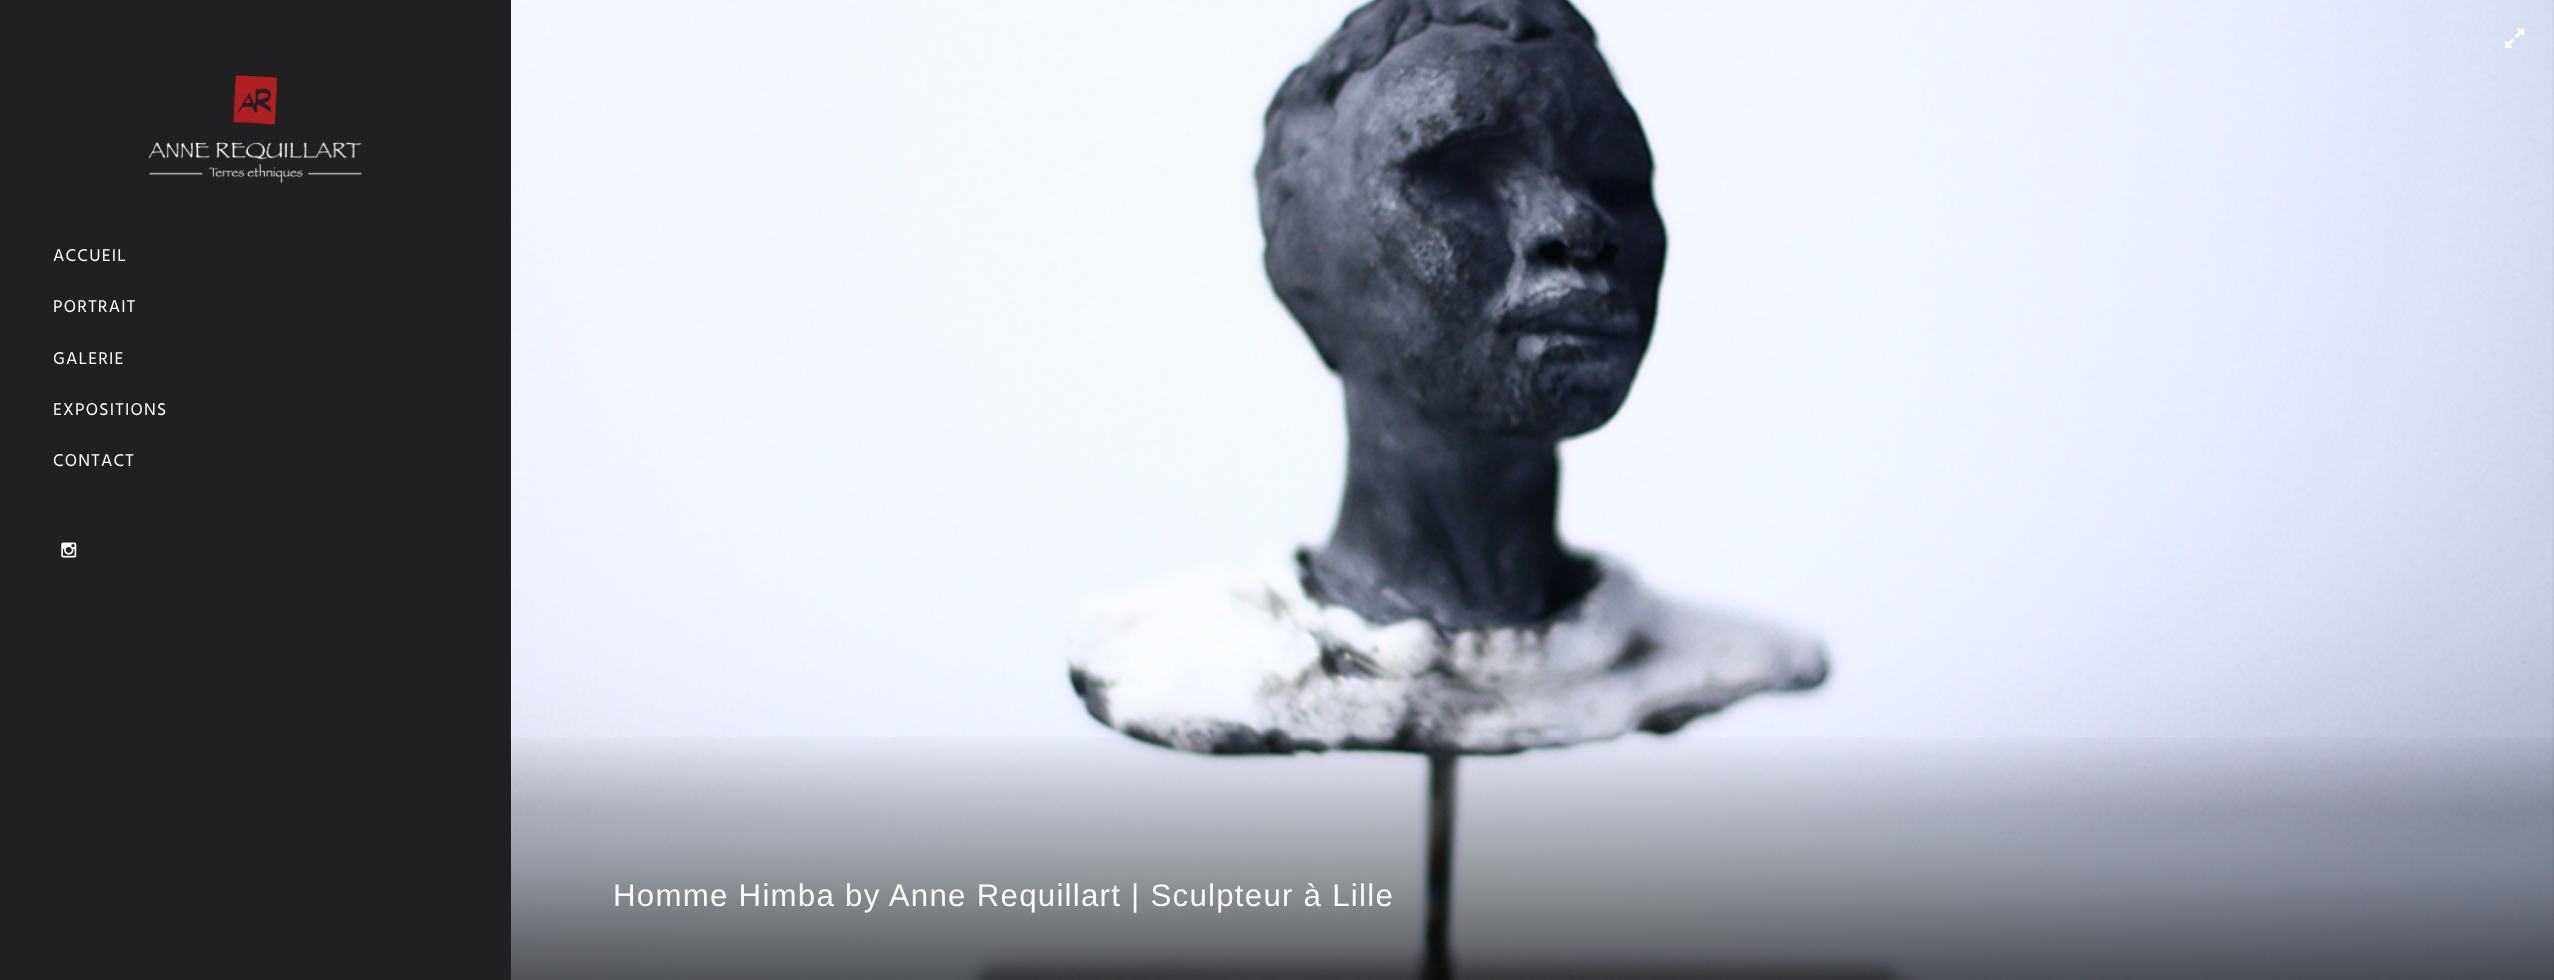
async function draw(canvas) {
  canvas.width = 2554;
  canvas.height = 980;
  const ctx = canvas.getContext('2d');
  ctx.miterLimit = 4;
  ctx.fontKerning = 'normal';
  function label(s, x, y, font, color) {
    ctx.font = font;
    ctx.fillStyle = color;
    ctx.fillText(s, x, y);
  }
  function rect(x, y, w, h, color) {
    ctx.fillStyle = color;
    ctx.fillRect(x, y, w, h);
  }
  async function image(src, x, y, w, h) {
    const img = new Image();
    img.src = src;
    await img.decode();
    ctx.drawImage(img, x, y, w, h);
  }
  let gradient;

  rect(0, 0, 2554, 980, '#fff');
  rect(0, 0, 511, 980, '#202023');
  await image('assets/img1.png', 148, 75, 214, 109);
  ctx.letterSpacing = '1.25px';
  label('ACCUEIL', 53, 261, '17.5px Hind', '#fff');
  label('PORTRAIT', 53, 312, '17.5px Hind', '#fff');
  label('GALERIE', 53, 364, '17.5px Hind', '#fff');
  label('EXPOSITIONS', 53, 415, '17.5px Hind', '#fff');
  label('CONTACT', 53, 466, '17.5px Hind', '#fff');
  await image('assets/img2.png', 61, 542, 16, 16);
  await image('assets/img4.png', 511, 0, 2043, 980);
  await image('assets/img3.png', 2505, 28, 20, 20);
  gradient = ctx.createLinearGradient(1533, 729, 1533, 980);
  gradient.addColorStop(0, '#00000000');
  gradient.addColorStop(1, '#000000a8');
  ctx.fillStyle = gradient;
  ctx.fillRect(511, 737, 2043, 243);
  label('Homme Himba by Anne Requillart | Sculpteur à Lille', 613, 906, '31.25px Liberation Sans', '#f9f9f9');
}

draw(document.querySelector('canvas'));
